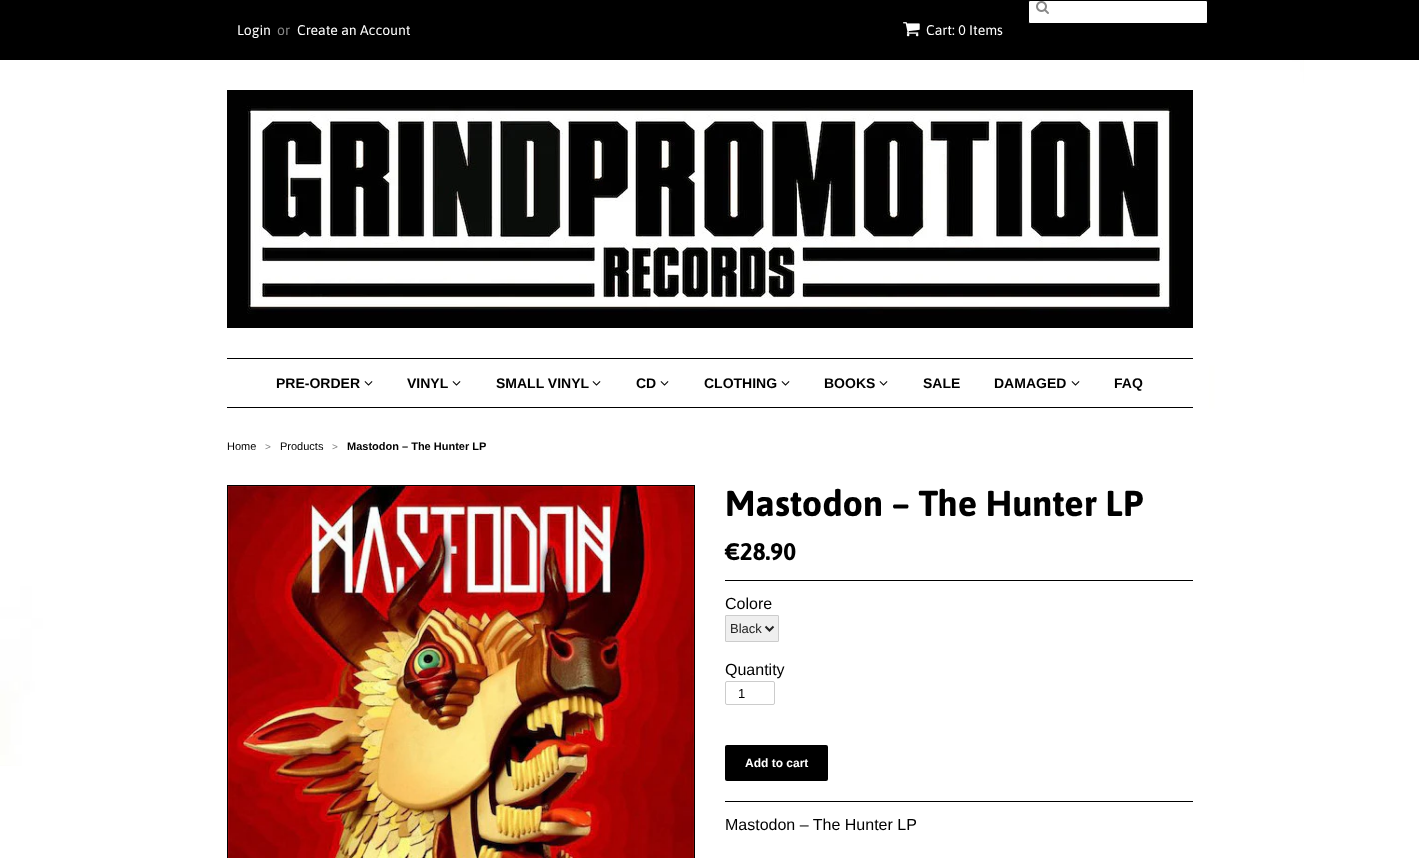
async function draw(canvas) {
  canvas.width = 1419;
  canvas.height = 858;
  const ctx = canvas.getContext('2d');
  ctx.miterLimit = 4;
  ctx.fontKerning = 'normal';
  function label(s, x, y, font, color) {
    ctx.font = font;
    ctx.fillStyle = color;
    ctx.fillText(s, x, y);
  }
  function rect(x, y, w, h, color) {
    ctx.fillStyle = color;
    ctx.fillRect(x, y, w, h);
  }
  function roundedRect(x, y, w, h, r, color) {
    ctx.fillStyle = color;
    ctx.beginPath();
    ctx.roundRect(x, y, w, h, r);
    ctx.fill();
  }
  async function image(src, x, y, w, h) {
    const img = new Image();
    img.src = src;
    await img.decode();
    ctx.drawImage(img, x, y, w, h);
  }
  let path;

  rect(0, 0, 1419, 858, '#fff');
  await image('assets/img1.png', 0, 60, 1304, 706);
  rect(0, 0, 1419, 60, '#000');
  ctx.fillStyle = '#fff';
  ctx.beginPath();
  ctx.roundRect(1028.5, 0.5, 179, 23, 1.5);
  ctx.fill();
  ctx.strokeStyle = '#000';
  ctx.stroke();
  await image('assets/img2.png', 1036, 1, 13, 13);
  label('Login', 237, 35, '14px Asap', '#fff');
  label('or', 277, 35, '14px Asap', '#888');
  label('Create an Account', 297, 35, '14px Asap', '#fff');
  await image('assets/img3.png', 903, 22, 17, 15);
  label('Cart: 0 Items', 926, 35, '14px Asap', '#fff');
  rect(567, 60, 642, 516, '#fff');
  await image('assets/img4.png', 227, 90, 966, 238);
  rect(227, 358, 966, 1, '#000');
  rect(227, 407, 966, 1, '#000');
  label('PRE-ORDER', 276, 388, 'bold 14px Liberation Sans', '#000');
  await image('assets/img5.png', 364, 381, 9, 5);
  label('VINYL', 407, 388, 'bold 14px Liberation Sans', '#000');
  await image('assets/img5.png', 452, 381, 9, 5);
  label('SMALL VINYL', 496, 388, 'bold 14px Liberation Sans', '#000');
  await image('assets/img5.png', 592, 381, 9, 5);
  label('CD', 636, 388, 'bold 14px Liberation Sans', '#000');
  await image('assets/img5.png', 660, 381, 9, 5);
  label('CLOTHING', 704, 388, 'bold 14px Liberation Sans', '#000');
  await image('assets/img5.png', 781, 381, 9, 5);
  label('BOOKS', 824, 388, 'bold 14px Liberation Sans', '#000');
  await image('assets/img5.png', 879, 381, 9, 5);
  label('SALE', 923, 388, 'bold 14px Liberation Sans', '#000');
  label('DAMAGED', 994, 388, 'bold 14px Liberation Sans', '#000');
  await image('assets/img5.png', 1071, 381, 9, 5);
  label('FAQ', 1114, 388, 'bold 14px Liberation Sans', '#000');
  label('Home', 227, 450, '11px Liberation Sans', '#000');
  label('>', 265, 450, '10px Liberation Sans', '#808080');
  label('Products', 280, 450, '11px Liberation Sans', '#000');
  label('>', 332, 450, '10px Liberation Sans', '#808080');
  label('Mastodon – The Hunter LP', 347, 450, 'bold 11px Liberation Sans', '#000');
  ctx.strokeRect(227.5, 485.5, 467, 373);
  await image('assets/img6.png', 228, 486, 466, 372);
  label('Mastodon – The Hunter LP', 725, 516, 'bold 36px Asap', '#000');
  label('€28.90', 725, 560, 'bold 24px Asap', '#000');
  rect(725, 580, 468, 1, '#000');
  rect(725, 801, 468, 1, '#000');
  label('Colore', 725, 609, '16px Liberation Sans', '#000');
  ctx.fillStyle = '#efefef';
  ctx.beginPath();
  ctx.roundRect(725.5, 615.5, 53, 26, 0.5);
  ctx.fill();
  ctx.strokeStyle = '#ccc';
  ctx.stroke();
  path = new Path2D('M765.5 626.5L769.5 630.5L773.5 626.5');
  ctx.strokeStyle = '#222';
  ctx.lineWidth = 2;
  ctx.stroke(path);
  label('Black', 730, 633, '13px Liberation Sans', '#222');
  label('Quantity', 725, 675, '16px Liberation Sans', '#000');
  ctx.beginPath();
  ctx.roundRect(725.5, 681.5, 49, 23, 1.5);
  ctx.strokeStyle = '#ccc';
  ctx.lineWidth = 1;
  ctx.stroke();
  label('1', 738, 698, '13px Liberation Sans', '#000');
  roundedRect(725, 745, 103, 36, 2, '#000');
  label('Add to cart', 745, 767, 'bold 12px Liberation Sans', '#fff');
  label('Mastodon – The Hunter LP', 725, 830, '16px Liberation Sans', '#000');
}

draw(document.querySelector('canvas'));
